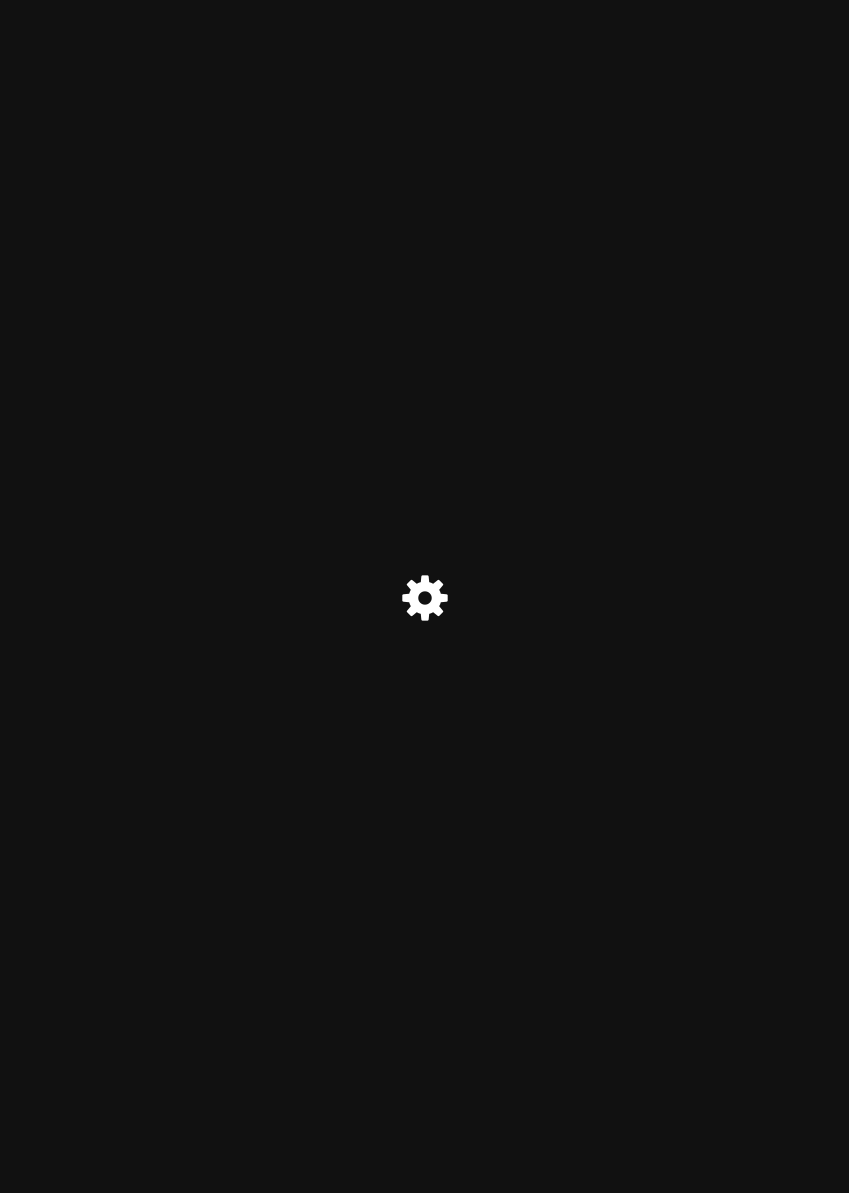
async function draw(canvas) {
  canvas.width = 849;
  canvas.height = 1193;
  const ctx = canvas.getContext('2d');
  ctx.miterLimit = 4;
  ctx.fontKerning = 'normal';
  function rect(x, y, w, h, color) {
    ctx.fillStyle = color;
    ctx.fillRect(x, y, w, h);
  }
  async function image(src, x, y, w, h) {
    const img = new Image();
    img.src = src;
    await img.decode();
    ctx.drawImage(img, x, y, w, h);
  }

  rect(0, 0, 849, 1193, '#111');
  await image('assets/img1.png', 402, 575, 46, 46);
}

draw(document.querySelector('canvas'));
